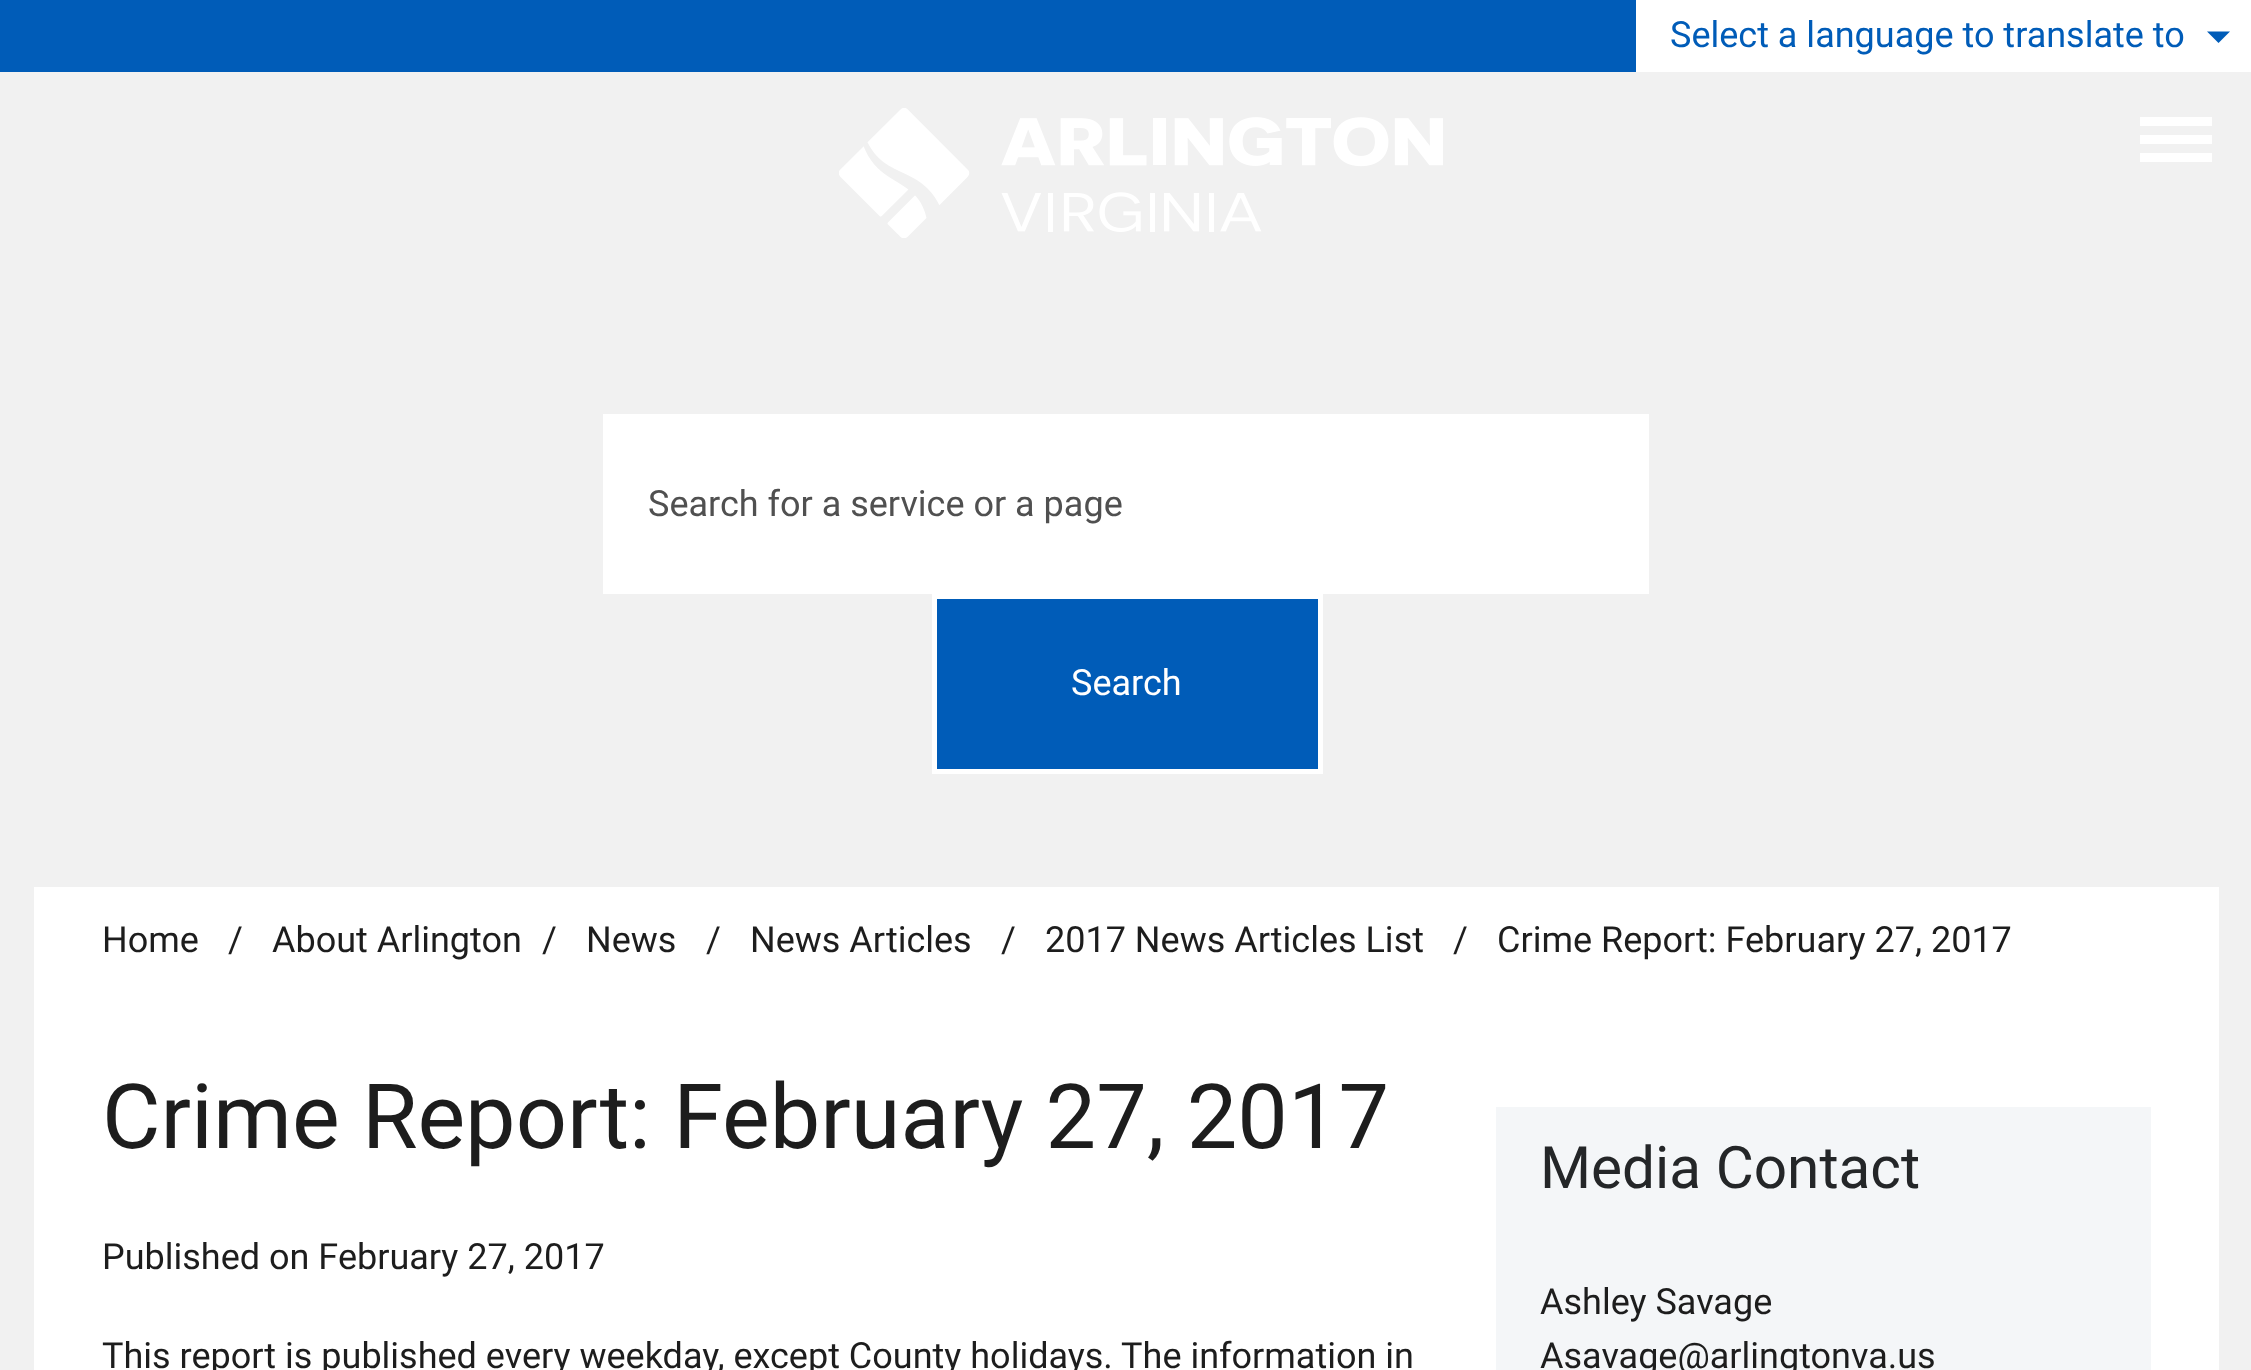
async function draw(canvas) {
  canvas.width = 2251;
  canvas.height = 1370;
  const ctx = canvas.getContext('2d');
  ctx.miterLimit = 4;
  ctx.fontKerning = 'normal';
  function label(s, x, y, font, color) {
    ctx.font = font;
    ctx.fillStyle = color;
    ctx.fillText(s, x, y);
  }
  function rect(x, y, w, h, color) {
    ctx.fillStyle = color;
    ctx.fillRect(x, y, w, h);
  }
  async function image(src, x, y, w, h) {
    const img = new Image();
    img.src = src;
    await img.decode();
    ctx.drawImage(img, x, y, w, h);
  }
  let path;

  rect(0, 0, 2251, 1370, '#f1f1f1');
  rect(0, 0, 1636, 72, '#005cb8');
  rect(1636, 0, 615, 72, '#fff');
  label('Select a language to translate to', 1670, 47, '36px Roboto', '#005cb8');
  path = new Path2D('M2207 31.5H2230L2218.5 43Z');
  ctx.fill(path);
  rect(2140, 135, 72, 9, '#fff');
  rect(2140, 117, 72, 9, '#fff');
  rect(2140, 153, 72, 9, '#fff');
  await image('assets/img1.png', 839, 108, 604, 130);
  rect(603, 414, 1046, 180, '#fff');
  label('Search for a service or a page', 648, 516, '36px Roboto', '#505050');
  ctx.fillStyle = '#005cb8';
  ctx.beginPath();
  ctx.rect(934.5, 596.5, 386, 175);
  ctx.fill();
  ctx.strokeStyle = '#fff';
  ctx.lineWidth = 5;
  ctx.stroke();
  label('Search', 1071, 695, '36px Roboto', '#fff');
  rect(34, 887, 2185, 483, '#fff');
  label('Home', 102, 952, '36px Roboto', '#1d1d1d');
  label('/', 228, 952, '36px Roboto', '#1d1d1d');
  label('About Arlington', 272, 952, '36px Roboto', '#1d1d1d');
  label('/', 542, 952, '36px Roboto', '#1d1d1d');
  label('News', 586, 952, '36px Roboto', '#1d1d1d');
  label('/', 706, 952, '36px Roboto', '#1d1d1d');
  label('News Articles', 750, 952, '36px Roboto', '#1d1d1d');
  label('/', 1001, 952, '36px Roboto', '#1d1d1d');
  label('2017 News Articles List', 1045, 952, '36px Roboto', '#1d1d1d');
  label('/', 1453, 952, '36px Roboto', '#1d1d1d');
  label('Crime Report: February 27, 2017', 1497, 952, '36px Roboto', '#1d1d1d');
  label('Crime Report: February 27, 2017', 102, 1148, '90px Roboto', '#1d1d1d');
  label('Published on February 27, 2017', 102, 1269, '36px Roboto', '#1d1d1d');
  label('This report is published every weekday, except County holidays. The information in', 102, 1368, '36px Roboto', '#1d1d1d');
  rect(1496, 1107, 655, 263, '#f4f6f8');
  label('Media Contact', 1540, 1188, '58.5px Roboto', '#242628');
  label('Ashley Savage', 1540, 1314, '36px Roboto', '#1d1d1d');
  label('Asavage@arlingtonva.us', 1540, 1368, '36px Roboto', '#1d1d1d');
}

draw(document.querySelector('canvas'));
